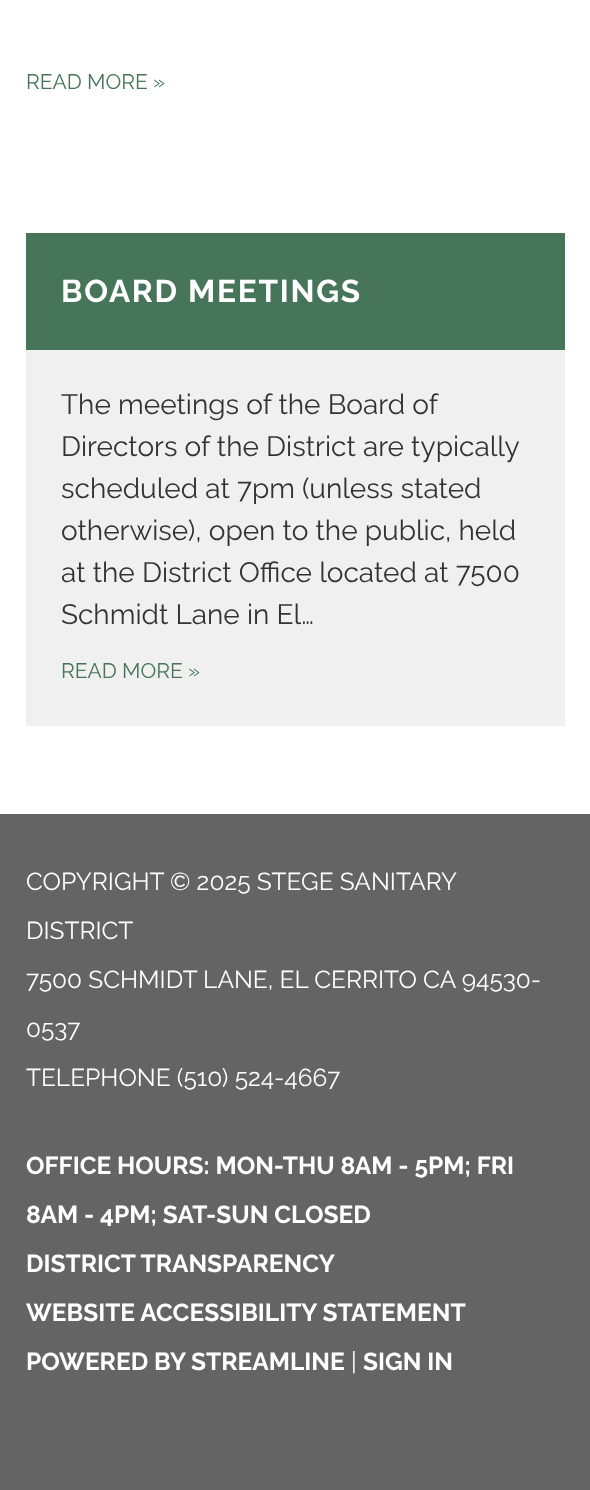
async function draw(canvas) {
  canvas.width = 590;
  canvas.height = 1490;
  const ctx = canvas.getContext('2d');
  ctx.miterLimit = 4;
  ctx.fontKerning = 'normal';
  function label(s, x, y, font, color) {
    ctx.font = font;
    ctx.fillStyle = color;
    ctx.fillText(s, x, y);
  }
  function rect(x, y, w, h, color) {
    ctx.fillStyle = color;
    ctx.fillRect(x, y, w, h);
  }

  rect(0, 0, 590, 1490, '#646464');
  rect(0, 0, 590, 814, '#fff');
  label('READ MORE »', 26, 89, '21px Raleway', '#46755a');
  rect(26, 350, 539, 376, '#f0f0f0');
  rect(26, 233, 539, 117, '#46755a');
  ctx.letterSpacing = '1.75px';
  label('BOARD MEETINGS', 61, 302, 'bold 31.5px Raleway', '#fff');
  ctx.letterSpacing = '0px';
  label('The meetings of the Board of', 61, 414, '28px Raleway', '#333');
  label('Directors of the District are typically', 61, 456, '28px Raleway', '#333');
  label('scheduled at 7pm (unless stated', 61, 498, '28px Raleway', '#333');
  label('otherwise), open to the public, held', 61, 540, '28px Raleway', '#333');
  label('at the District Office located at 7500', 61, 582, '28px Raleway', '#333');
  label('Schmidt Lane in El…', 61, 624, '28px Raleway', '#333');
  label('READ MORE »', 61, 678, '21px Raleway', '#46755a');
  label('COPYRIGHT © 2025 STEGE SANITARY', 26, 890, '24.5px Raleway', '#fff');
  label('DISTRICT', 26, 939, '24.5px Raleway', '#fff');
  label('7500 SCHMIDT LANE, EL CERRITO CA 94530-', 26, 988, '24.5px Raleway', '#fff');
  label('0537', 26, 1037, '24.5px Raleway', '#fff');
  label('TELEPHONE (510) 524-4667', 26, 1086, '24.5px Raleway', '#fff');
  label('OFFICE HOURS: MON-THU 8AM - 5PM; FRI', 26, 1174, 'bold 24.5px Raleway', '#fff');
  label('8AM - 4PM; SAT-SUN CLOSED', 26, 1223, 'bold 24.5px Raleway', '#fff');
  label('DISTRICT TRANSPARENCY', 26, 1272, 'bold 24.5px Raleway', '#fff');
  label('WEBSITE ACCESSIBILITY STATEMENT', 26, 1321, 'bold 24.5px Raleway', '#fff');
  label('POWERED BY STREAMLINE', 26, 1370, 'bold 24.5px Raleway', '#fff');
  label('|', 351, 1370, '24.5px Raleway', '#fff');
  label('SIGN IN', 363, 1370, 'bold 24.5px Raleway', '#fff');
}

draw(document.querySelector('canvas'));
